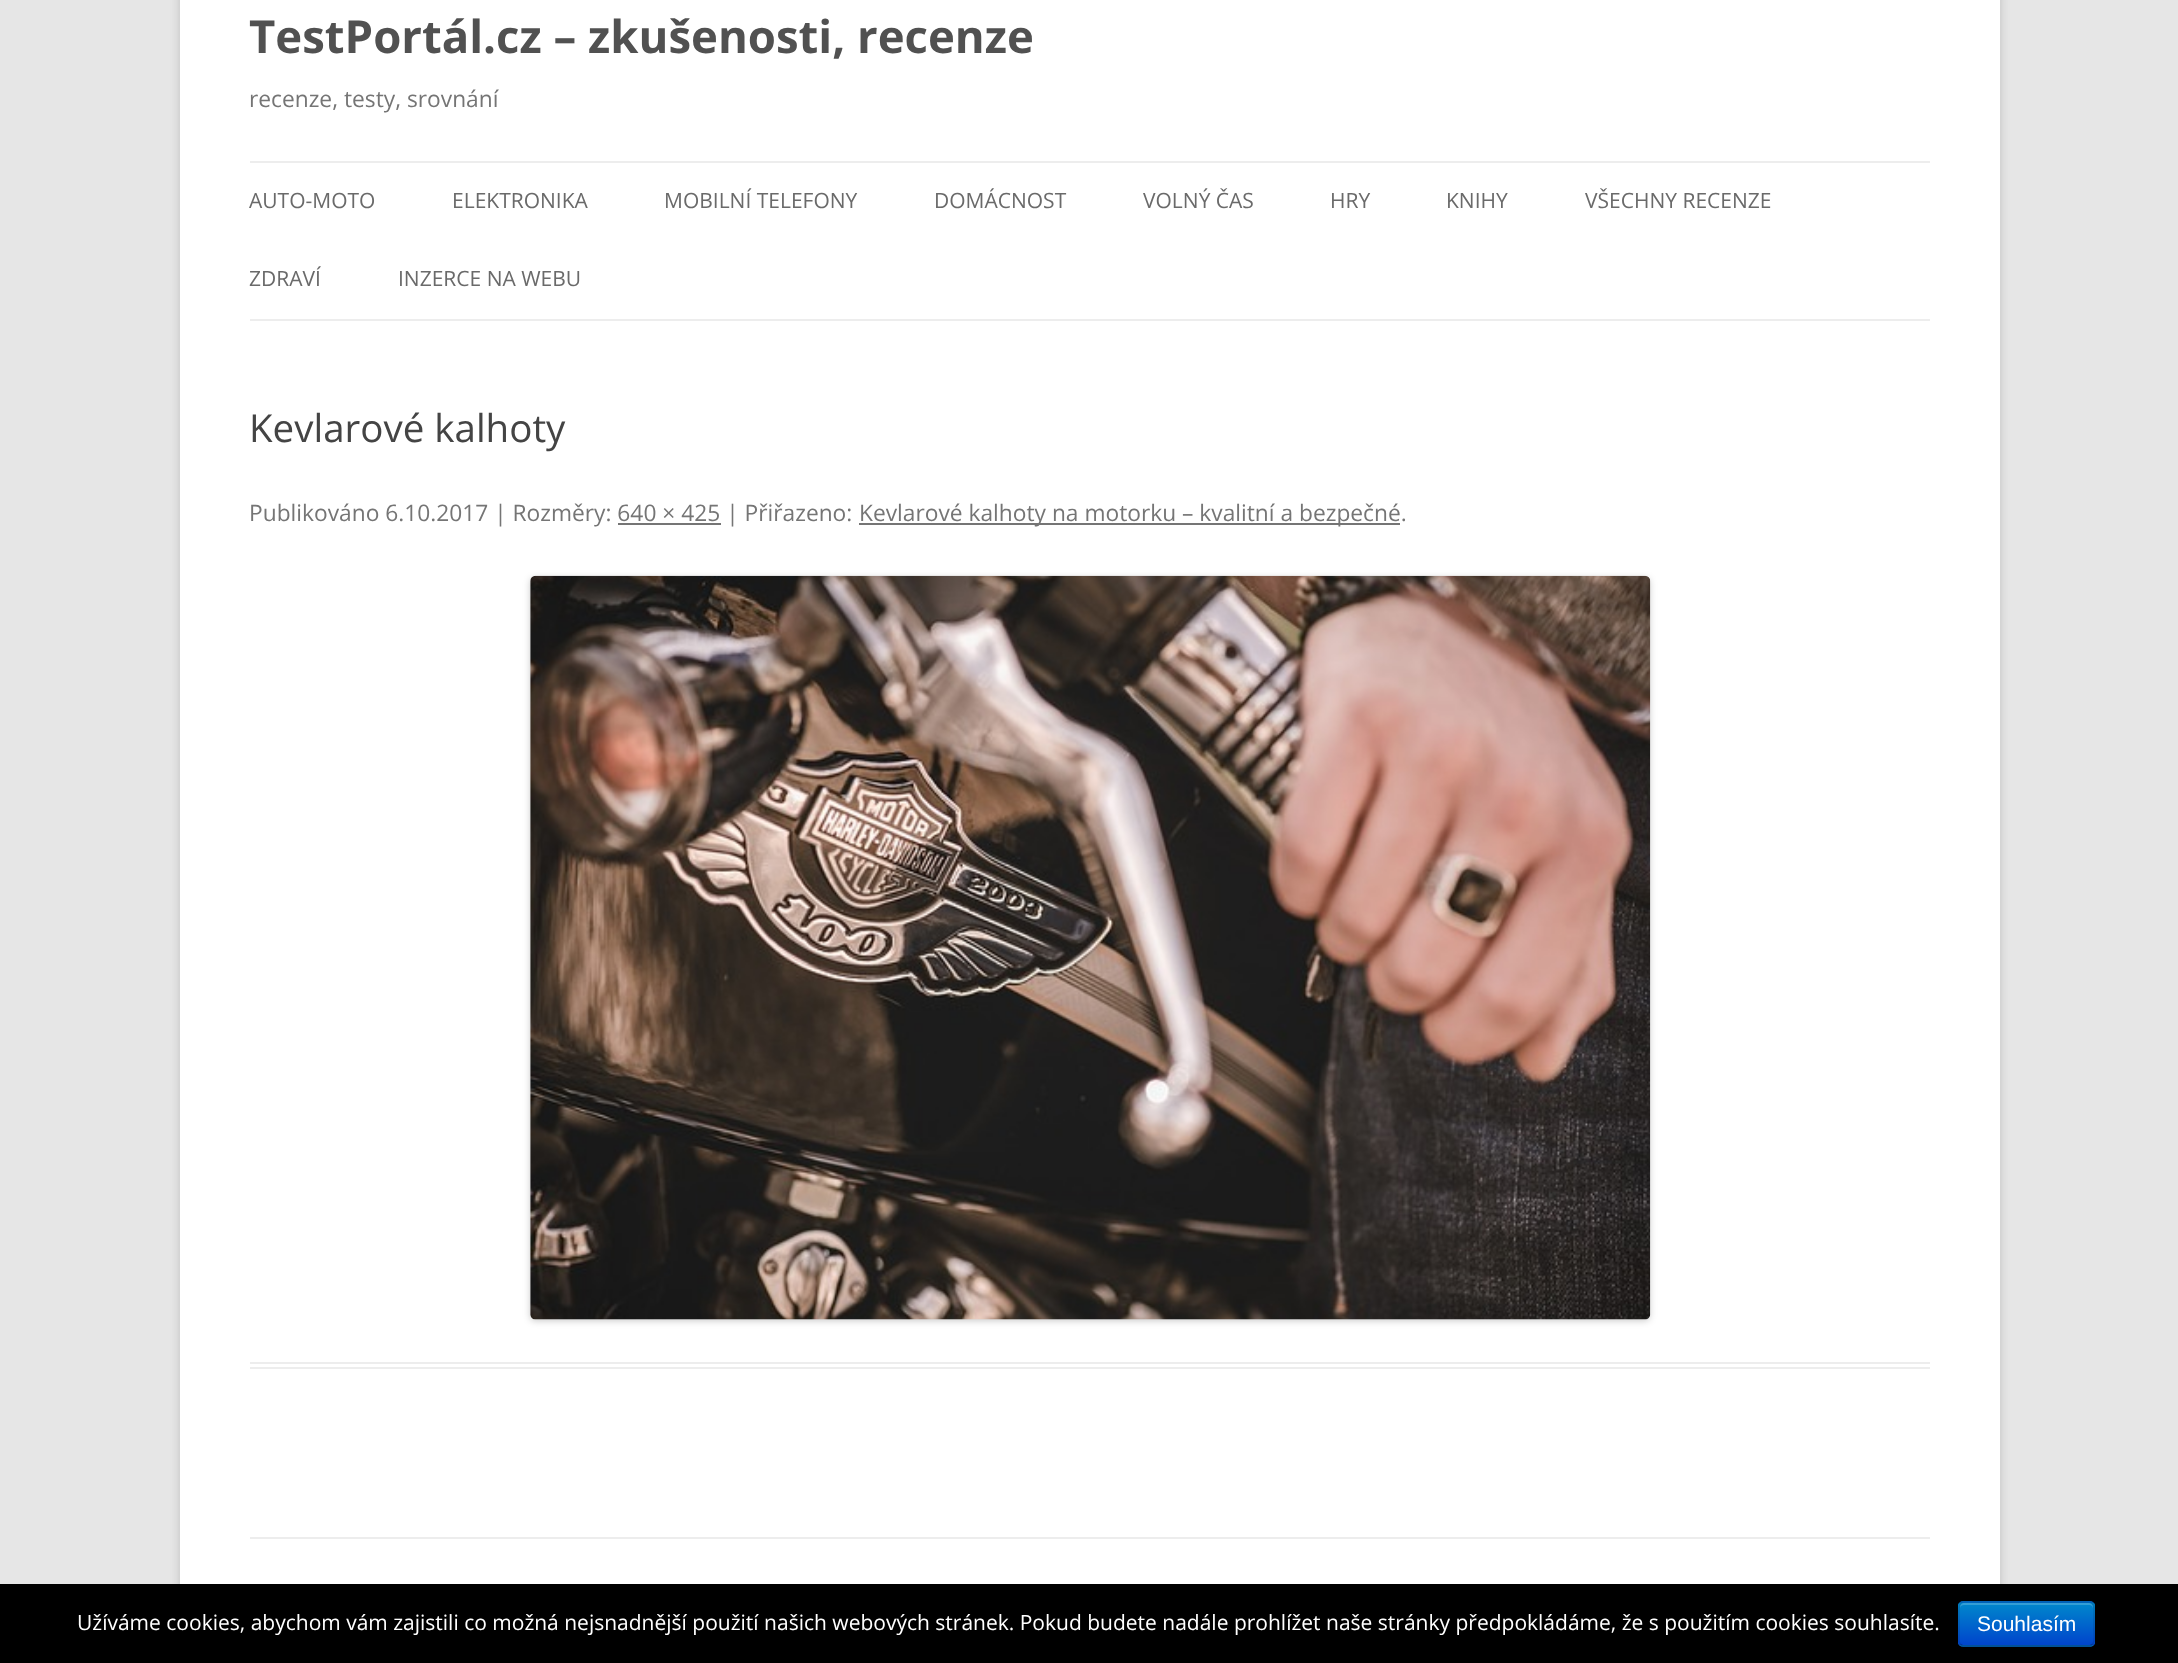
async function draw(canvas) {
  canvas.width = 2178;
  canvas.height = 1663;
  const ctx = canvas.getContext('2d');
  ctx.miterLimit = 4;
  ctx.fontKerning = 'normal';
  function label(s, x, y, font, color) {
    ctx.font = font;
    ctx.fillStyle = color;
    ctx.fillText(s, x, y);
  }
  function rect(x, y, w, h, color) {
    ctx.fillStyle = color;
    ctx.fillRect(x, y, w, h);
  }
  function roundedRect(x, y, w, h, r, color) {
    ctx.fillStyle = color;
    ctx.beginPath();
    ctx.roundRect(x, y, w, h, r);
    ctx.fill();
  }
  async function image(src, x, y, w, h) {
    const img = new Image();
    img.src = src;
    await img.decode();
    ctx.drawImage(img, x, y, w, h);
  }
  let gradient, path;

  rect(0, 0, 2178, 1663, '#e6e6e6');
  ctx.fillStyle = '#6464644d';
  ctx.filter = 'blur(5px)';
  ctx.beginPath();
  ctx.rect(180, -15, 1820, 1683);
  ctx.fill();
  ctx.filter = 'none';
  rect(180, 0, 1820, 1584, '#fff');
  label('TestPortál.cz – zkušenosti, recenze', 249, 53, 'bold 45.5px Open Sans', '#515151');
  label('recenze, testy, srovnání', 249, 107, '22.75px Open Sans', '#757575');
  rect(250, 161, 1680, 2, '#ededed');
  rect(250, 319, 1680, 2, '#ededed');
  label('AUTO-MOTO', 249, 208, '21px Open Sans', '#6a6a6a');
  label('ELEKTRONIKA', 452, 208, '21px Open Sans', '#6a6a6a');
  label('MOBILNÍ TELEFONY', 664, 208, '21px Open Sans', '#6a6a6a');
  label('DOMÁCNOST', 934, 208, '21px Open Sans', '#6a6a6a');
  label('VOLNÝ ČAS', 1143, 208, '21px Open Sans', '#6a6a6a');
  label('HRY', 1330, 208, '21px Open Sans', '#6a6a6a');
  label('KNIHY', 1446, 208, '21px Open Sans', '#6a6a6a');
  label('VŠECHNY RECENZE', 1585, 208, '21px Open Sans', '#6a6a6a');
  label('ZDRAVÍ', 249, 286, '21px Open Sans', '#6a6a6a');
  label('INZERCE NA WEBU', 398, 286, '21px Open Sans', '#6a6a6a');
  rect(250, 1362, 1680, 2, '#ededed');
  rect(250, 1367, 1680, 2, '#ededed');
  label('Kevlarové kalhoty', 249, 442, '38.5px Open Sans', '#444');
  label('Publikováno 6.10.2017 | Rozměry: 640 × 425 | Přiřazeno:', 249, 521, '22.75px Open Sans', '#757575');
  rect(859, 523, 541, 2, '#757575');
  label('Kevlarové kalhoty na motorku – kvalitní a bezpečné.', 859, 521, '22.75px Open Sans', '#757575');
  rect(618, 523, 103, 2, '#757575');
  ctx.fillStyle = '#00000033';
  ctx.filter = 'blur(3.5px)';
  ctx.beginPath();
  ctx.roundRect(530, 578, 1120, 743, 5);
  ctx.fill();
  ctx.filter = 'none';
  await image('assets/img1.png', 530, 575, 1121, 745);
  rect(250, 1537, 1680, 2, '#ededed');
  rect(0, 1584, 2178, 79, '#000');
  label('Užíváme cookies, abychom vám zajistili co možná nejsnadnější použití našich webových stránek. Pokud budete nadále prohlížet naše stránky předpokládáme, že s použitím cookies souhlasíte.', 77, 1630, '21px Open Sans', '#fff');
  roundedRect(1958, 1601, 137, 46, 5, '#006dcc');
  ctx.save();
  ctx.beginPath();
  ctx.roundRect(1958, 1601, 137, 46, 5);
  ctx.clip();
  gradient = ctx.createLinearGradient(2027, 1603, 2027, 1645);
  gradient.addColorStop(0, '#08c');
  gradient.addColorStop(1, '#04c');
  ctx.fillStyle = gradient;
  ctx.fillRect(1958, 1603, 137, 42);
  ctx.restore();
  ctx.fillStyle = '#ffffff33';
  path = new Path2D('M1964 1605H2090L2092 1606L2093 1608V1607C2093 1605 2091 1603 2089 1603H1964C1962 1603 1960 1605 1960 1607V1608C1960 1606 1962 1605 1964 1605Z');
  ctx.fill(path);
  path = new Path2D('M2092.5 1644.5L2089.5 1646H1963L1960.5 1644.5');
  ctx.strokeStyle = '#00000040';
  ctx.lineWidth = 1.8;
  ctx.stroke(path);
  path = new Path2D('M1960.5 1644.5C1958 1642.5 1959 1638 1959 1635.5V1624C1959 1597 1955 1602 1984.5 1602H2089.5C2095 1602 2094 1609 2094 1612.5V1630C2094 1633 2095.5 1642 2092.5 1644.5');
  ctx.strokeStyle = '#0000001a';
  ctx.stroke(path);
  label('Souhlasím', 1977, 1631, '21px Liberation Sans', '#fff');
}

draw(document.querySelector('canvas'));
